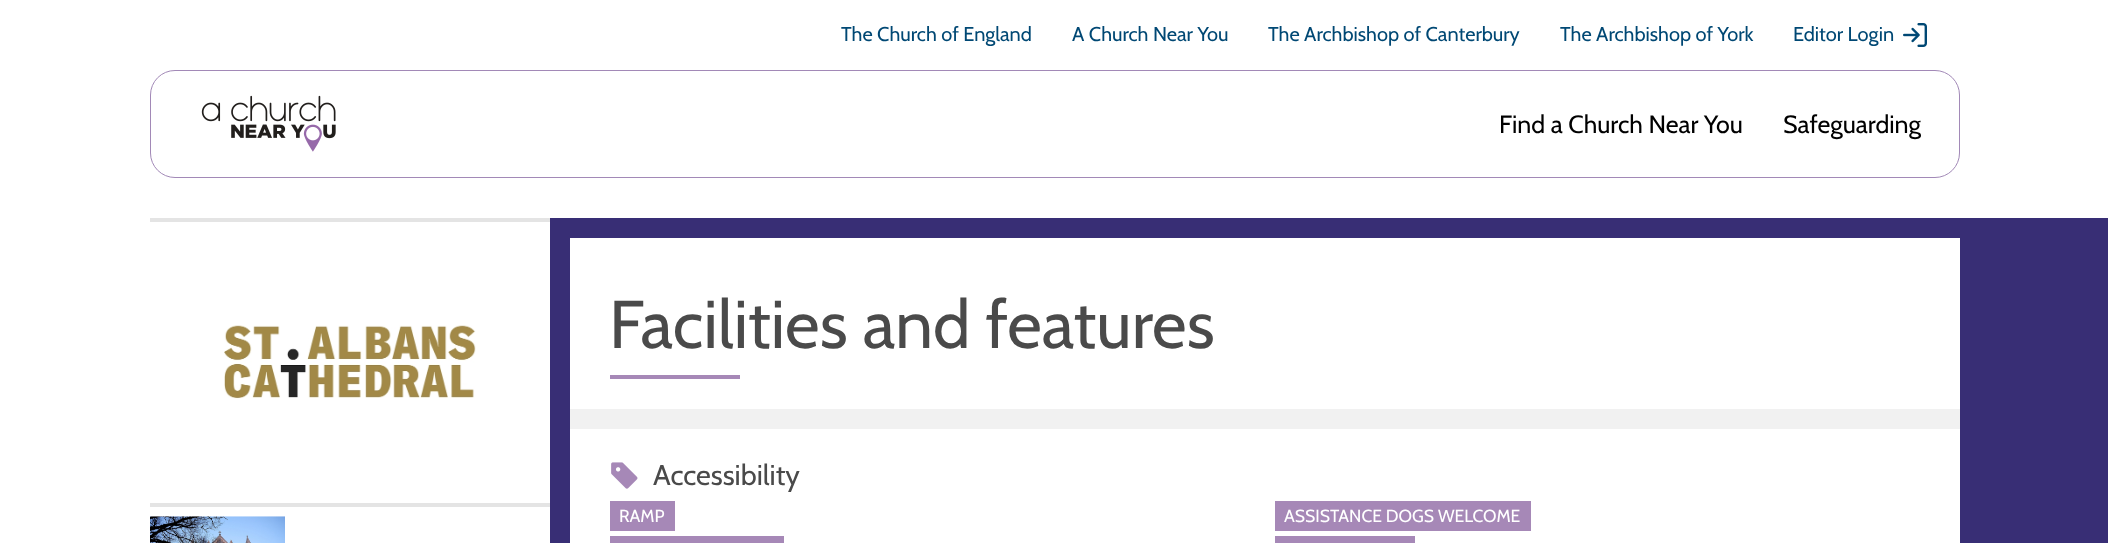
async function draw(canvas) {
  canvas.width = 2108;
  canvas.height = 543;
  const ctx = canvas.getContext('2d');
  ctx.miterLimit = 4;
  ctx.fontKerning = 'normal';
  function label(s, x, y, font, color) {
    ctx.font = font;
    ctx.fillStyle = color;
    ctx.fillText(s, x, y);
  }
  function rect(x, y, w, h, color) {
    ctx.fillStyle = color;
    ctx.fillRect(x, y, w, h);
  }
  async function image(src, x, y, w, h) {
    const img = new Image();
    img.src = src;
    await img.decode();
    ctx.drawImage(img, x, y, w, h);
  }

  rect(0, 0, 2108, 543, '#fff');
  label('The Church of England', 841, 41, '20px Cabin', '#004874');
  label('A Church Near You', 1072, 41, '20px Cabin', '#004874');
  label('The Archbishop of Canterbury', 1268, 41, '20px Cabin', '#004874');
  label('The Archbishop of York', 1560, 41, '20px Cabin', '#004874');
  label('Editor Login', 1793, 41, '20px Cabin', '#004874');
  await image('assets/img1.png', 1903, 23, 24, 24);
  ctx.beginPath();
  ctx.roundRect(150.5, 70.5, 1809, 107, 24.5);
  ctx.strokeStyle = '#a289b7';
  ctx.stroke();
  await image('assets/img2.png', 201, 95, 135, 57);
  label('Find a Church Near You', 1499, 133, '25px Cabin', '#000');
  label('Safeguarding', 1783, 133, '25px Cabin', '#000');
  rect(550, 218, 1558, 325, '#382e75');
  rect(150, 218, 400, 4, '#e4e4e4');
  await image('assets/img3.png', 224, 325, 252, 74);
  rect(150, 503, 400, 4, '#e4e4e4');
  await image('assets/img4.png', 150, 516, 135, 27);
  rect(570, 238, 1390, 305, '#fff');
  label('Facilities and features', 609, 348, '67.5px Cabin', '#4a4a4a');
  rect(610, 375, 130, 4, '#a688b7');
  rect(570, 409, 1390, 20, '#f1f1f1');
  await image('assets/img5.png', 611, 462, 27, 27);
  label('Accessibility', 653, 485, '28.75px Cabin', '#4a4a4a');
  rect(610, 501, 65, 30, '#a688b7');
  label('RAMP', 619, 522, '17.5px Cabin', '#fff');
  rect(1275, 501, 256, 30, '#a688b7');
  label('ASSISTANCE DOGS WELCOME', 1284, 522, '17.5px Cabin', '#fff');
  rect(610, 536, 174, 7, '#a688b7');
  rect(1275, 536, 140, 7, '#a688b7');
}

draw(document.querySelector('canvas'));
